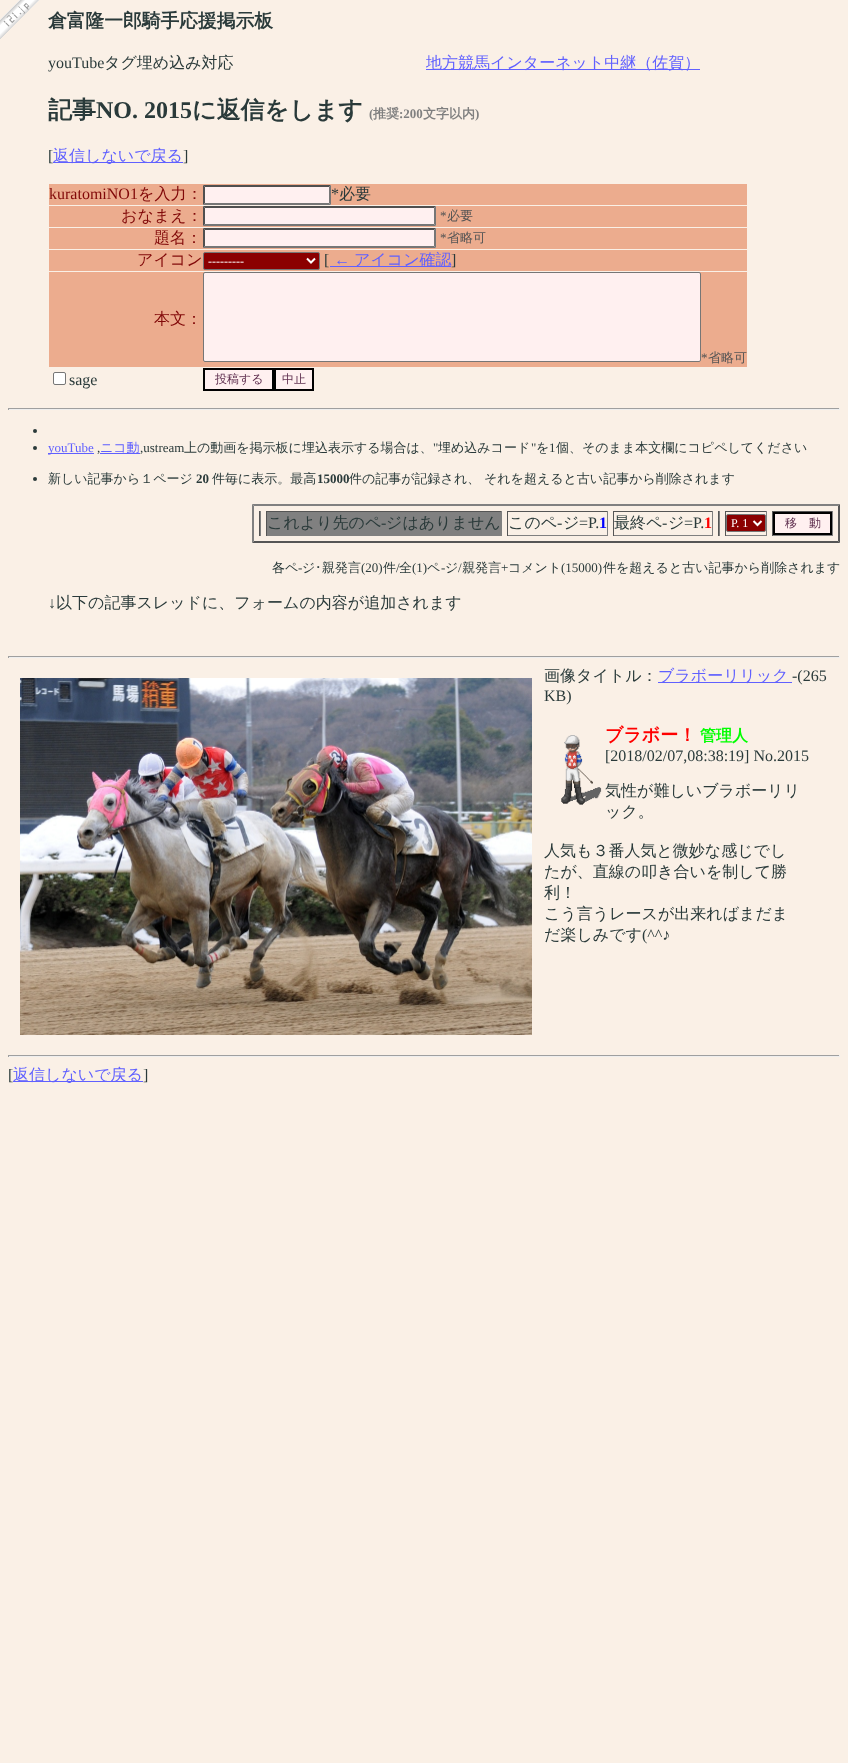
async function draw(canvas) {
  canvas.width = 848;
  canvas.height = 1763;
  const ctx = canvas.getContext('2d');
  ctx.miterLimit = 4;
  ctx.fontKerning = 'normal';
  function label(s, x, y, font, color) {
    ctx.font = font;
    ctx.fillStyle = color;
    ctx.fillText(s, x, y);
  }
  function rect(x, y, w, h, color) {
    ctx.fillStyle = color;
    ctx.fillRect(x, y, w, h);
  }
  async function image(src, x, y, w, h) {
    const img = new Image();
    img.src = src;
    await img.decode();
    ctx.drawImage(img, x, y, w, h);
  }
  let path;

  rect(0, 0, 848, 1763, '#faf0e6');
  await image('assets/img1.png', 0, 0, 39, 39);
  label('倉富隆一郎騎手応援掲示板', 48, 27, 'bold 18.75px WenQuanYi Zen Hei', '#2a3a3a');
  label('youTube', 48, 68, '16px Liberation Serif', '#2a3a3a');
  label('タグ埋め込み対応', 104, 68, '500 16px WenQuanYi Zen Hei', '#2a3a3a');
  rect(426, 69, 274, 1, '#6060ff');
  label('地方競馬インターネット中継（佐賀）', 426, 68, '500 16px WenQuanYi Zen Hei', '#6060ff');
  label('記事', 48, 118, 'bold 24px WenQuanYi Zen Hei', '#2a3a3a');
  label('NO. 2015', 96, 118, 'bold 24px Liberation Serif', '#2a3a3a');
  label('に返信をします', 192, 118, 'bold 24px WenQuanYi Zen Hei', '#2a3a3a');
  label('(', 369, 118, 'bold 13px Liberation Serif', '#808080');
  label('推奨', 373, 118, 'bold 13px WenQuanYi Zen Hei', '#808080');
  label(':200', 399, 118, 'bold 13px Liberation Serif', '#808080');
  label('文字以内', 423, 118, 'bold 13px WenQuanYi Zen Hei', '#808080');
  label(')', 475, 118, 'bold 13px Liberation Serif', '#808080');
  label('[', 48, 161, '16px Liberation Serif', '#2a3a3a');
  rect(53, 162, 130, 1, '#6060ff');
  label('返信しないで戻る', 53, 161, '500 16px WenQuanYi Zen Hei', '#6060ff');
  label(']', 183, 161, '16px Liberation Serif', '#2a3a3a');
  rect(49, 184, 698, 21, '#ecac8e');
  label('kuratomiNO1', 49, 199, '16px Liberation Serif', '#810808');
  label('を入力：', 138, 199, '500 16px WenQuanYi Zen Hei', '#810808');
  rect(203, 185, 128, 20, '#fff0f0');
  ctx.fillStyle = '#4f4f4f';
  path = new Path2D('M203 185H331L329 187H205Z');
  ctx.fill(path);
  ctx.fillStyle = '#767676';
  path = new Path2D('M331 185V205L329 203V187Z');
  ctx.fill(path);
  path = new Path2D('M331 205H203L205 203H329Z');
  ctx.fill(path);
  ctx.fillStyle = '#4f4f4f';
  path = new Path2D('M203 205V185L205 187V203Z');
  ctx.fill(path);
  label('*', 331, 199, '16px Liberation Serif', '#2a3a3a');
  label('必要', 339, 199, '500 16px WenQuanYi Zen Hei', '#2a3a3a');
  rect(49, 206, 698, 21, '#ecac8e');
  label('おなまえ：', 121, 221, '500 16px WenQuanYi Zen Hei', '#810808');
  rect(203, 206, 233, 20, '#fff0f0');
  ctx.fillStyle = '#4f4f4f';
  path = new Path2D('M203 206H436L434 208H205Z');
  ctx.fill(path);
  ctx.fillStyle = '#767676';
  path = new Path2D('M436 206V226L434 224V208Z');
  ctx.fill(path);
  path = new Path2D('M436 226H203L205 224H434Z');
  ctx.fill(path);
  ctx.fillStyle = '#4f4f4f';
  path = new Path2D('M203 226V206L205 208V224Z');
  ctx.fill(path);
  label('*', 440, 220, '13px Liberation Serif', '#555');
  label('必要', 447, 220, '500 13px WenQuanYi Zen Hei', '#555');
  rect(49, 228, 698, 21, '#ecac8e');
  label('題名：', 154, 243, '500 16px WenQuanYi Zen Hei', '#810808');
  rect(203, 228, 233, 20, '#fff0f0');
  ctx.fillStyle = '#4f4f4f';
  path = new Path2D('M203 228H436L434 230H205Z');
  ctx.fill(path);
  ctx.fillStyle = '#767676';
  path = new Path2D('M436 228V248L434 246V230Z');
  ctx.fill(path);
  path = new Path2D('M436 248H203L205 246H434Z');
  ctx.fill(path);
  ctx.fillStyle = '#4f4f4f';
  path = new Path2D('M203 248V228L205 230V246Z');
  ctx.fill(path);
  label('*', 440, 242, '13px Liberation Serif', '#555');
  label('省略可', 447, 242, '500 13px WenQuanYi Zen Hei', '#555');
  rect(49, 250, 698, 21, '#ecac8e');
  label('アイコン', 137, 265, '500 16px WenQuanYi Zen Hei', '#810808');
  ctx.fillStyle = '#8b0000';
  ctx.beginPath();
  ctx.roundRect(203.5, 252.5, 116, 17, 1.5);
  ctx.fill();
  ctx.strokeStyle = '#767676';
  ctx.stroke();
  path = new Path2D('M307 258.5L311 262.5L315 258.5');
  ctx.strokeStyle = '#fff';
  ctx.lineWidth = 2;
  ctx.stroke(path);
  label('---------', 208, 265, '12px Liberation Serif', '#fff');
  label('[', 324, 265, '16px Liberation Serif', '#2a3a3a');
  label('←', 334, 265, '16px Liberation Serif', '#6060ff');
  rect(330, 266, 121, 1, '#6060ff');
  label('アイコン確認', 354, 265, '500 16px WenQuanYi Zen Hei', '#6060ff');
  label(']', 451, 265, '16px Liberation Serif', '#2a3a3a');
  rect(49, 272, 698, 95, '#ecac8e');
  label('本文：', 154, 324, '500 16px WenQuanYi Zen Hei', '#810808');
  ctx.fillStyle = '#fff0f0';
  ctx.beginPath();
  ctx.roundRect(203.5, 272.5, 497, 89, 1.5);
  ctx.fill();
  ctx.strokeStyle = '#767676';
  ctx.lineWidth = 1;
  ctx.stroke();
  label('*', 701, 362, '13px Liberation Serif', '#555');
  label('省略可', 708, 362, '500 13px WenQuanYi Zen Hei', '#555');
  ctx.fillStyle = '#fff';
  ctx.beginPath();
  ctx.roundRect(53.5, 372.5, 12, 12, 1.5);
  ctx.fill();
  ctx.stroke();
  label('sage', 69, 385, '16px Liberation Serif', '#2a3a3a');
  ctx.fillStyle = '#fff0f0';
  ctx.beginPath();
  ctx.rect(204, 369, 69, 21);
  ctx.fill();
  ctx.strokeStyle = '#000';
  ctx.lineWidth = 2;
  ctx.stroke();
  label('投稿する', 215, 383, '500 12px WenQuanYi Zen Hei', '#603050');
  ctx.fillStyle = '#fff0f0';
  ctx.beginPath();
  ctx.rect(275, 369, 38, 21);
  ctx.fill();
  ctx.stroke();
  label('中止', 282, 383, '500 12px WenQuanYi Zen Hei', '#603050');
  rect(8, 408, 832, 1, '#9f9f9f');
  rect(839, 408, 1, 2, '#eee');
  rect(8, 409, 832, 1, '#eee');
  rect(8, 408, 1, 2, '#9f9f9f');
  ctx.fillStyle = '#2a3a3a';
  ctx.beginPath();
  ctx.arc(35, 431, 2, 0, 2 * Math.PI);
  ctx.fill();
  ctx.beginPath();
  ctx.arc(35, 448, 2, 0, 2 * Math.PI);
  ctx.fill();
  rect(48, 453, 46, 1, '#6060ff');
  label('youTube', 48, 452, '13px Liberation Serif', '#6060ff');
  rect(100, 453, 40, 1, '#6060ff');
  label('ニコ動', 100, 452, '500 13px WenQuanYi Zen Hei', '#6060ff');
  label(',ustream', 140, 452, '13px Liberation Serif', '#2a3a3a');
  label('上の動画を掲示板に埋込表示する場合は、', 184, 452, '500 13px WenQuanYi Zen Hei', '#2a3a3a');
  label('"', 433, 452, '13px Liberation Serif', '#2a3a3a');
  label('埋め込みコード', 438, 452, '500 13px WenQuanYi Zen Hei', '#2a3a3a');
  label('"', 531, 452, '13px Liberation Serif', '#2a3a3a');
  label('を', 536, 452, '500 13px WenQuanYi Zen Hei', '#2a3a3a');
  label('1', 549, 452, '13px Liberation Serif', '#2a3a3a');
  label('個、そのまま本文欄にコピペしてください', 556, 452, '500 13px WenQuanYi Zen Hei', '#2a3a3a');
  label(',', 97, 452, '13px Liberation Serif', '#2a3a3a');
  ctx.beginPath();
  ctx.arc(35, 479, 2, 0, 2 * Math.PI);
  ctx.fill();
  label('新しい記事から１ページ', 48, 483, '500 13px WenQuanYi Zen Hei', '#2a3a3a');
  label('20', 196, 483, 'bold 13px Liberation Serif', '#2a3a3a');
  label('件毎に表示。最高', 212, 483, '500 13px WenQuanYi Zen Hei', '#2a3a3a');
  label('15000', 317, 483, 'bold 13px Liberation Serif', '#2a3a3a');
  label('件の記事が記録され、', 349, 483, '500 13px WenQuanYi Zen Hei', '#2a3a3a');
  label('それを超えると古い記事から削除されます', 484, 483, '500 13px WenQuanYi Zen Hei', '#2a3a3a');
  ctx.fillStyle = '#808080';
  path = new Path2D('M252 504H840L838 506H254Z');
  ctx.fill(path);
  ctx.fillStyle = '#555';
  path = new Path2D('M840 504V543L838 541V506Z');
  ctx.fill(path);
  path = new Path2D('M840 543H252L254 541H838Z');
  ctx.fill(path);
  ctx.fillStyle = '#808080';
  path = new Path2D('M252 543V504L254 506V541Z');
  ctx.fill(path);
  rect(260, 511, 1, 25, '#808080');
  rect(259, 535, 2, 1, '#808080');
  rect(259, 511, 1, 25, '#555');
  rect(267, 512, 234, 24, '#808080');
  rect(266, 511, 236, 1, '#555');
  rect(501, 511, 1, 25, '#808080');
  rect(266, 511, 1, 25, '#555');
  label('これより先のペ', 267, 528, '500 16px WenQuanYi Zen Hei', '#2a3a3a');
  label('-', 381, 528, '16px Liberation Serif', '#2a3a3a');
  label('ジはありません', 386, 528, '500 16px WenQuanYi Zen Hei', '#2a3a3a');
  rect(507, 511, 101, 1, '#555');
  rect(607, 511, 1, 25, '#808080');
  rect(507, 535, 101, 1, '#808080');
  rect(507, 511, 1, 25, '#555');
  label('このペ', 508, 528, '500 16px WenQuanYi Zen Hei', '#2a3a3a');
  label('-', 557, 528, '16px Liberation Serif', '#2a3a3a');
  label('ジ', 563, 528, '500 16px WenQuanYi Zen Hei', '#2a3a3a');
  label('=P.', 579, 528, '16px Liberation Serif', '#2a3a3a');
  label('1', 599, 528, 'bold 16px Liberation Serif', '#00f');
  rect(613, 511, 100, 1, '#555');
  rect(712, 511, 1, 25, '#808080');
  rect(613, 535, 100, 1, '#808080');
  rect(613, 511, 1, 25, '#555');
  label('最終ペ', 614, 528, '500 16px WenQuanYi Zen Hei', '#2a3a3a');
  label('-', 662, 528, '16px Liberation Serif', '#2a3a3a');
  label('ジ', 668, 528, '500 16px WenQuanYi Zen Hei', '#2a3a3a');
  label('=P.', 684, 528, '16px Liberation Serif', '#2a3a3a');
  label('1', 704, 528, 'bold 16px Liberation Serif', '#f00');
  rect(719, 511, 1, 25, '#808080');
  rect(718, 535, 2, 1, '#808080');
  rect(718, 511, 1, 25, '#555');
  rect(725, 511, 42, 1, '#555');
  rect(766, 511, 1, 25, '#808080');
  rect(725, 535, 42, 1, '#808080');
  rect(725, 511, 1, 25, '#555');
  ctx.fillStyle = '#8b0000';
  ctx.beginPath();
  ctx.roundRect(726.5, 514.5, 39, 17, 1.5);
  ctx.fill();
  ctx.strokeStyle = '#767676';
  ctx.lineWidth = 1;
  ctx.stroke();
  path = new Path2D('M753.5 521L757.5 525L761.5 521');
  ctx.strokeStyle = '#fff';
  ctx.lineWidth = 2;
  ctx.stroke(path);
  label('P. 1', 731, 527, '12px Liberation Serif', '#fff');
  rect(772, 511, 61, 1, '#555');
  rect(832, 511, 1, 25, '#808080');
  rect(772, 535, 61, 1, '#808080');
  rect(772, 511, 1, 25, '#555');
  ctx.fillStyle = '#fff0f0';
  ctx.beginPath();
  ctx.rect(774, 513, 57, 21);
  ctx.fill();
  ctx.strokeStyle = '#000';
  ctx.stroke();
  label('移　動', 785, 527, '500 12px WenQuanYi Zen Hei', '#603050');
  label('各ペ', 272, 572, '500 13px WenQuanYi Zen Hei', '#2a3a3a');
  label('ジ', 302, 572, '500 13px WenQuanYi Zen Hei', '#2a3a3a');
  label('親発言', 322, 572, '500 13px WenQuanYi Zen Hei', '#2a3a3a');
  label('(20)', 361, 572, '13px Liberation Serif', '#2a3a3a');
  label('件', 383, 572, '500 13px WenQuanYi Zen Hei', '#2a3a3a');
  label('/', 396, 572, '13px Liberation Serif', '#2a3a3a');
  label('全', 399, 572, '500 13px WenQuanYi Zen Hei', '#2a3a3a');
  label('(1)', 412, 572, '13px Liberation Serif', '#2a3a3a');
  label('ペ', 427, 572, '500 13px WenQuanYi Zen Hei', '#2a3a3a');
  label('ジ 親発言', 445, 572, '500 13px WenQuanYi Zen Hei', '#2a3a3a');
  label('コメント', 508, 572, '500 13px WenQuanYi Zen Hei', '#2a3a3a');
  label('(15000)', 561, 572, '13px Liberation Serif', '#2a3a3a');
  label('件を超えると古い記事から削除されます', 603, 572, '500 13px WenQuanYi Zen Hei', '#2a3a3a');
  label('･', 315, 572, '13px IPAPGothic', '#2a3a3a');
  label('/', 458, 572, '13px Liberation Serif', '#2a3a3a');
  label('+', 501, 572, '13px Liberation Serif', '#2a3a3a');
  label('-', 298, 572, '13px Liberation Serif', '#2a3a3a');
  label('-', 441, 572, '13px Liberation Serif', '#2a3a3a');
  label('↓', 48, 608, '16px Liberation Serif', '#2a3a3a');
  label('以下の記事スレッドに、フォームの内容が追加されます', 56, 608, '500 16px WenQuanYi Zen Hei', '#2a3a3a');
  rect(8, 656, 832, 1, '#9f9f9f');
  rect(839, 656, 1, 2, '#eee');
  rect(8, 657, 832, 1, '#eee');
  rect(8, 656, 1, 2, '#9f9f9f');
  label('画像タイトル：', 544, 681, '500 16px WenQuanYi Zen Hei', '#2a3a3a');
  rect(658, 682, 134, 1, '#6060ff');
  label('ブラボーリリック', 658, 681, '500 16px WenQuanYi Zen Hei', '#6060ff');
  await image('assets/img2.png', 20, 678, 512, 357);
  label('-(265', 792, 681, '16px Liberation Serif', '#2a3a3a');
  label('KB)', 544, 701, '16px Liberation Serif', '#2a3a3a');
  await image('assets/img3.png', 561, 735, 41, 70);
  label('ブラボー！', 605, 741, 'bold 18px WenQuanYi Zen Hei', '#f00');
  label('管理人', 700, 741, 'bold 16px WenQuanYi Zen Hei', '#0f0');
  label('[2018/02/07,08:38:19] No.2015', 605, 761, '16px Liberation Serif', '#2a3a3a');
  label('気性が難しいブラボーリリ', 605, 796, '500 16px WenQuanYi Zen Hei', '#2a3a3a');
  label('ック。', 605, 817, '500 16px WenQuanYi Zen Hei', '#2a3a3a');
  label('人気も３番人気と微妙な感じでし', 544, 856, '500 16px WenQuanYi Zen Hei', '#2a3a3a');
  label('たが、直線の叩き合いを制して勝', 544, 877, '500 16px WenQuanYi Zen Hei', '#2a3a3a');
  label('利！', 544, 898, '500 16px WenQuanYi Zen Hei', '#2a3a3a');
  label('こう言うレースが出来ればまだま', 544, 919, '500 16px WenQuanYi Zen Hei', '#2a3a3a');
  label('だ楽しみです', 544, 940, '500 16px WenQuanYi Zen Hei', '#2a3a3a');
  label('(^^♪', 642, 940, '16px Liberation Serif', '#2a3a3a');
  rect(8, 1055, 832, 1, '#9f9f9f');
  rect(839, 1055, 1, 2, '#eee');
  rect(8, 1056, 832, 1, '#eee');
  rect(8, 1055, 1, 2, '#9f9f9f');
  label('[', 8, 1080, '16px Liberation Serif', '#2a3a3a');
  rect(13, 1081, 130, 1, '#6060ff');
  label('返信しないで戻る', 13, 1080, '500 16px WenQuanYi Zen Hei', '#6060ff');
  label(']', 143, 1080, '16px Liberation Serif', '#2a3a3a');
}

draw(document.querySelector('canvas'));
